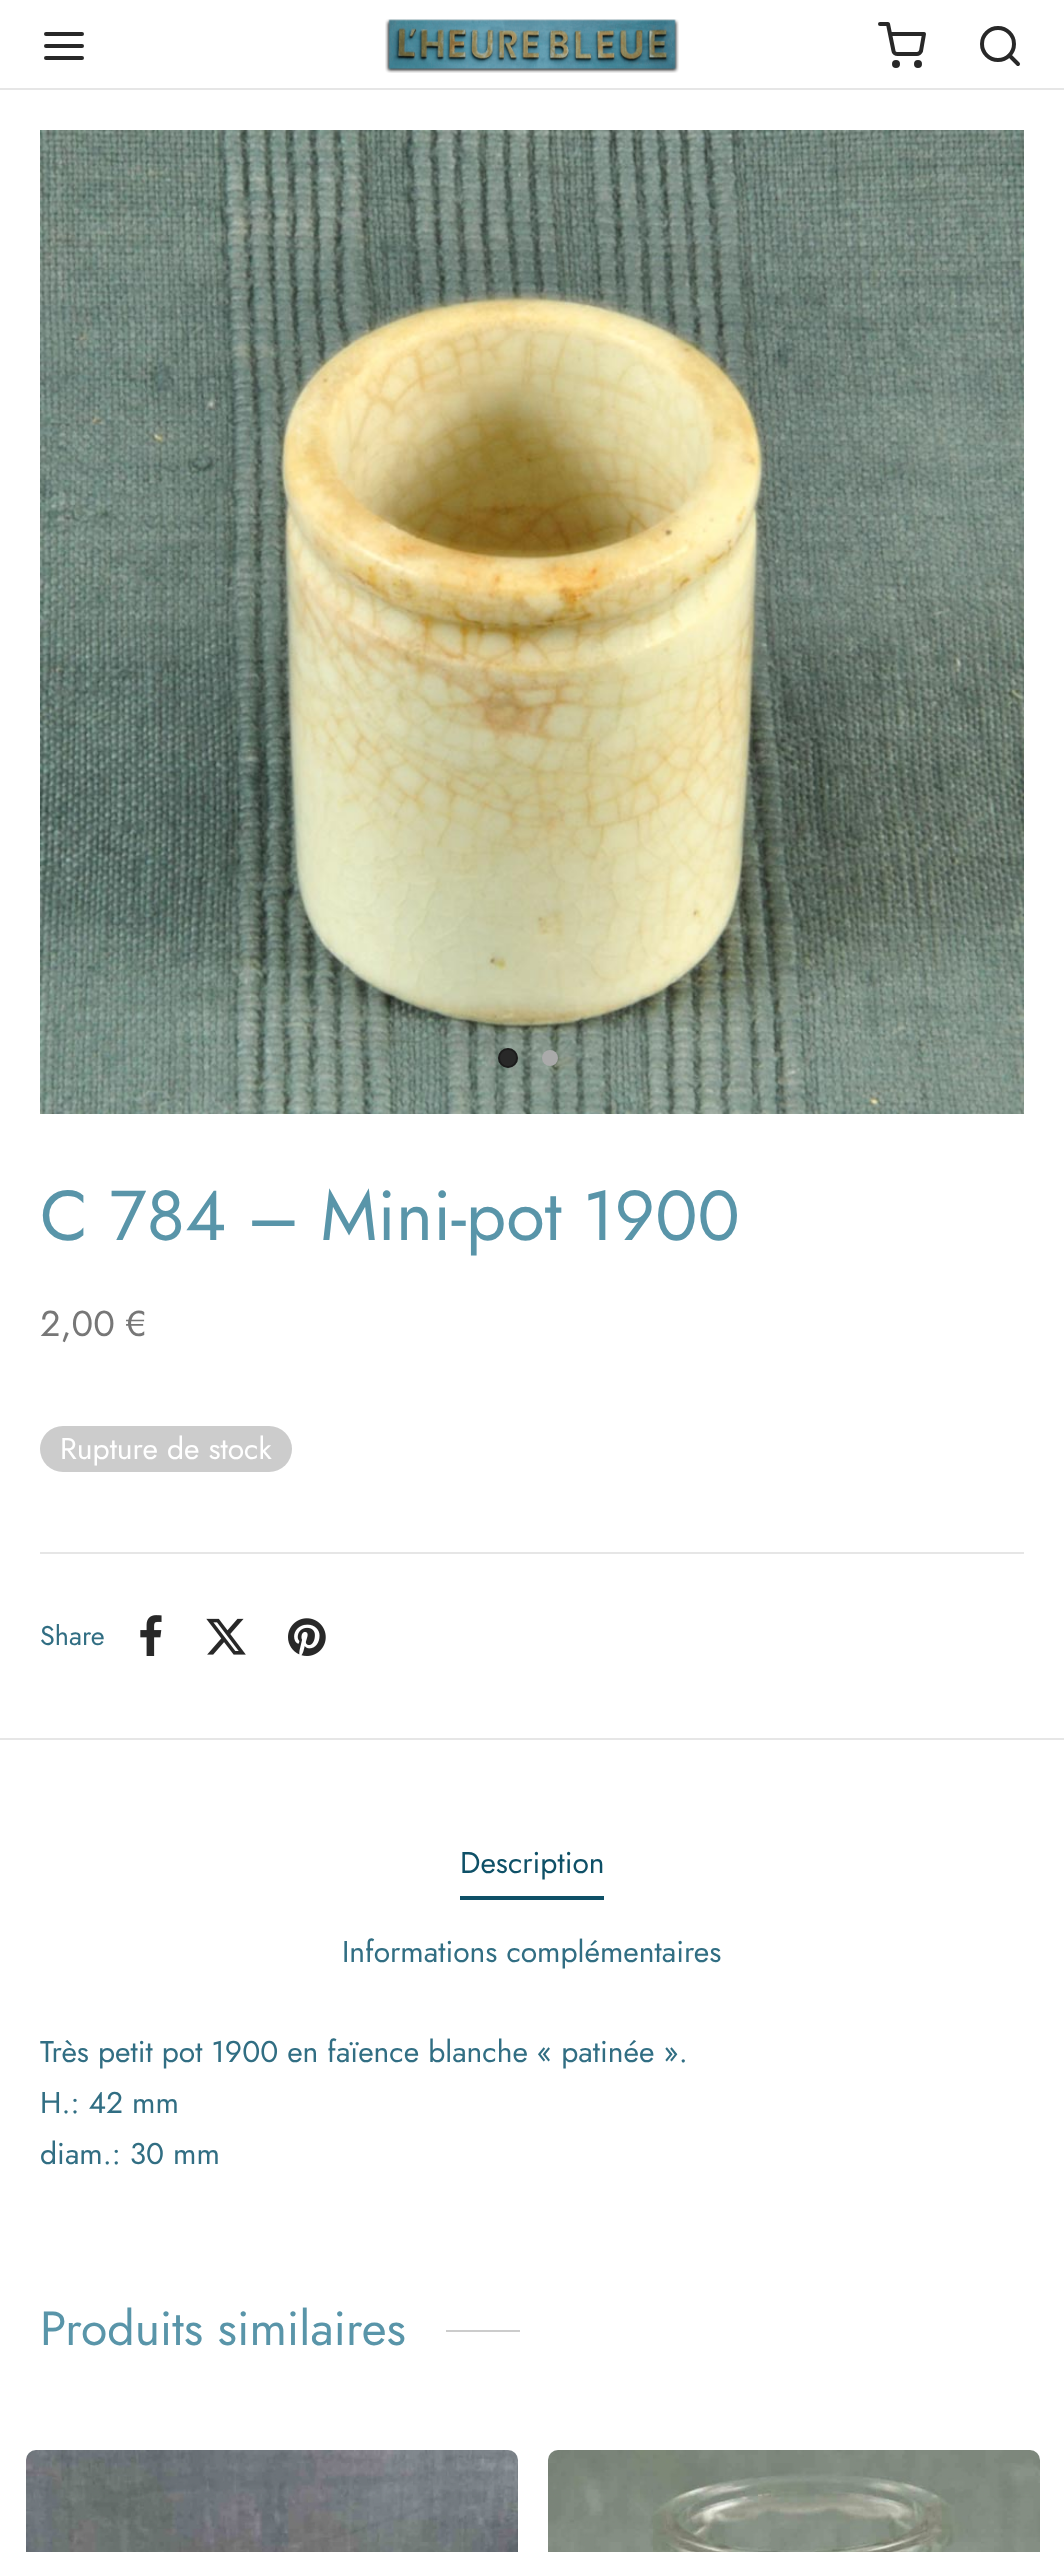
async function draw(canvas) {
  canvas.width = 1064;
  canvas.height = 2552;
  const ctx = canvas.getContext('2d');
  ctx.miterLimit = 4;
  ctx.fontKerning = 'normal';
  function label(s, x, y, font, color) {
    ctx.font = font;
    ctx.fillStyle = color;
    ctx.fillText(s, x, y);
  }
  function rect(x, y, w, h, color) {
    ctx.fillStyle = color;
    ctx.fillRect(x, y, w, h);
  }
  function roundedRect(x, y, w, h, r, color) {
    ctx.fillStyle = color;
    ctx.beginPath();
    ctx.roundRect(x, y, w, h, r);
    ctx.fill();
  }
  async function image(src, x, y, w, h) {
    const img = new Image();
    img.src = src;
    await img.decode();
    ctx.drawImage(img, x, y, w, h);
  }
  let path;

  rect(0, 0, 1064, 2552, '#fff');
  path = new Path2D('M46 46H82M46 34H82M46 58H82');
  ctx.strokeStyle = '#282828';
  ctx.lineWidth = 4;
  ctx.lineCap = 'round';
  ctx.lineJoin = 'round';
  ctx.stroke(path);
  await image('assets/img1.png', 385, 19, 294, 54);
  ctx.beginPath();
  ctx.arc(896, 64, 2, 0, 2 * Math.PI);
  ctx.stroke();
  ctx.beginPath();
  ctx.arc(918, 64, 2, 0, 2 * Math.PI);
  ctx.stroke();
  path = new Path2D('M880 24H888L893.5 51C893.5 52.5 895.5 54 897.5 54H917C918.5 54 920.5 52.5 921 51L924 34H890');
  ctx.stroke(path);
  ctx.beginPath();
  ctx.arc(998, 44, 16, 0, 2 * Math.PI);
  ctx.stroke();
  path = new Path2D('M1018 64L1009.5 55.5');
  ctx.stroke(path);
  rect(0, 88, 1064, 2, '#e6e6e6');
  rect(0, 1738, 1064, 2, '#e6e6e6');
  await image('assets/img2.png', 40, 130, 984, 984);
  ctx.fillStyle = '#282828';
  ctx.beginPath();
  ctx.arc(508, 1058, 10, 0, 2 * Math.PI);
  ctx.fill();
  ctx.beginPath();
  ctx.arc(508, 1058, 9, 0, 2 * Math.PI);
  ctx.strokeStyle = '#0000004d';
  ctx.lineWidth = 2;
  ctx.stroke();
  ctx.fillStyle = '#aaa';
  ctx.beginPath();
  ctx.arc(550, 1058, 8, 0, 2 * Math.PI);
  ctx.fill();
  label('C 784 – Mini-pot 1900', 40, 1240, '70.5px Jost', '#5995a9');
  label('2,00 €', 40, 1336, '36px Jost', '#777');
  roundedRect(40, 1426, 252, 46, 23, '#ccc');
  label('Rupture de stock', 60, 1459, '30px Jost', '#fff');
  rect(40, 1552, 984, 2, '#e6e6e6');
  label('Share', 40, 1645, '27px Jost', '#316e83');
  await image('assets/img3.png', 140, 1615, 22, 41);
  await image('assets/img4.png', 206, 1618, 40, 37);
  await image('assets/img5.png', 288, 1618, 38, 38);
  label('Description', 460, 1873, '30px Jost', '#0e5067');
  rect(460, 1896, 144, 4, '#0e5067');
  label('Informations complémentaires', 342, 1962, '30px Jost', '#316e83');
  label('Très petit pot 1900 en faïence blanche « patinée ».', 40, 2062, '30px Jost', '#316e83');
  label('H.: 42 mm', 40, 2113, '30px Jost', '#316e83');
  label('diam.: 30 mm', 40, 2164, '30px Jost', '#316e83');
  label('Produits similaires', 40, 2345, '48px Jost', '#5995a9');
  rect(446, 2330, 74, 2, '#ccc');
  await image('assets/img6.png', 26, 2450, 492, 102);
  await image('assets/img7.png', 548, 2450, 492, 102);
}

draw(document.querySelector('canvas'));
